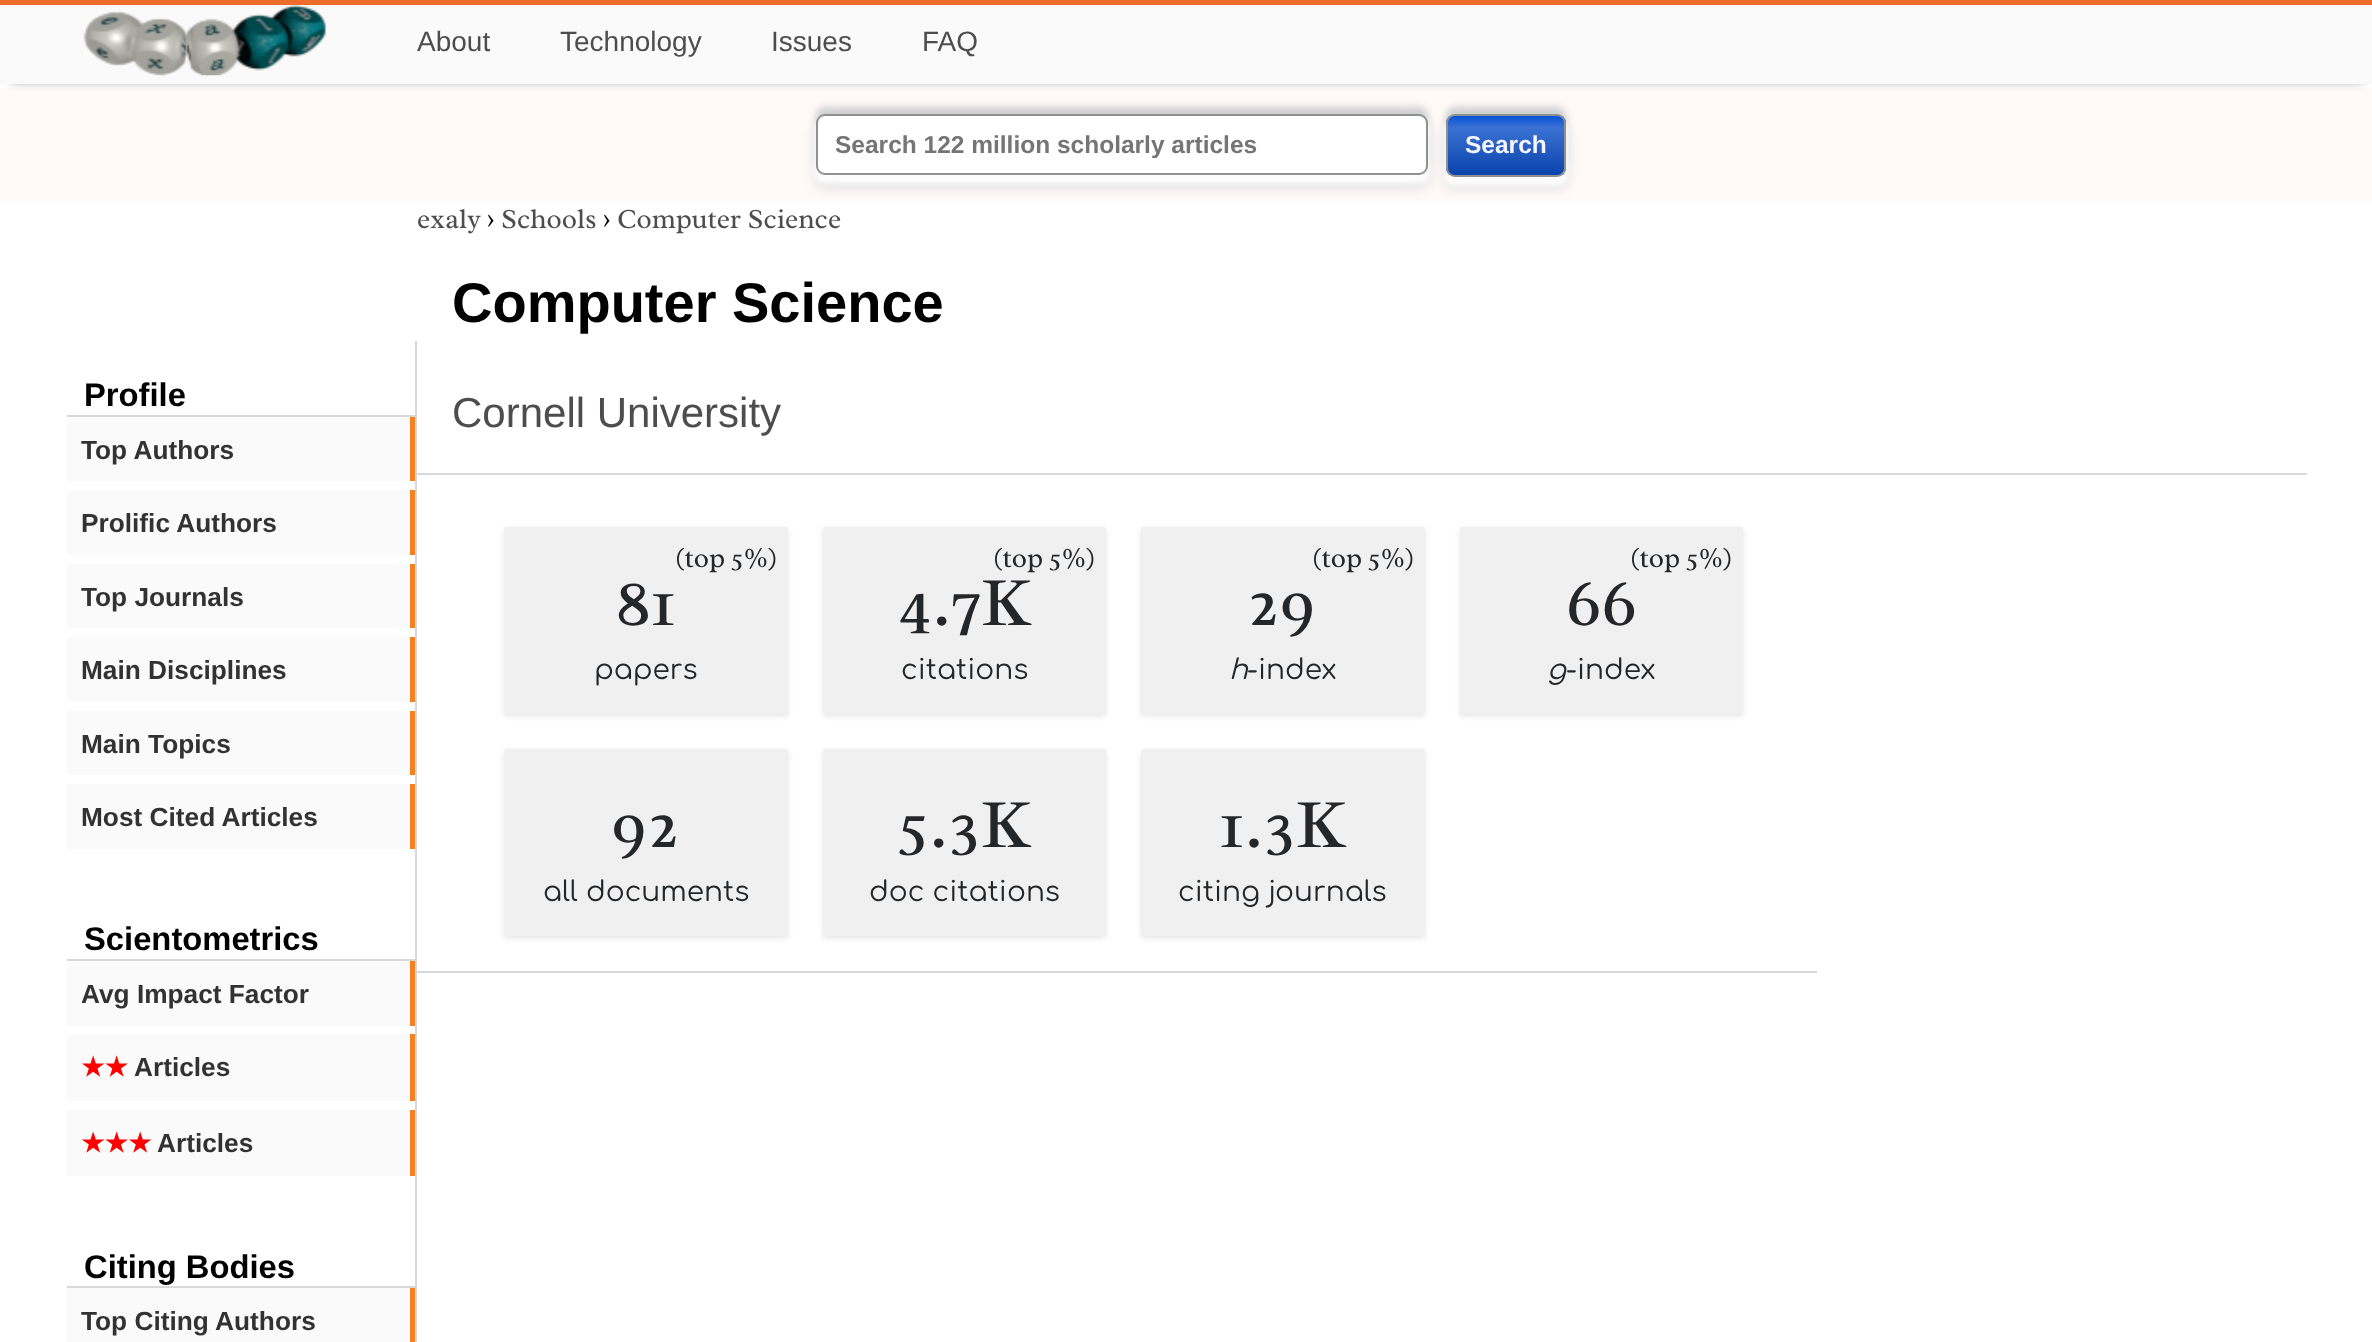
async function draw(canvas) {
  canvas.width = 2372;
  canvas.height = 1342;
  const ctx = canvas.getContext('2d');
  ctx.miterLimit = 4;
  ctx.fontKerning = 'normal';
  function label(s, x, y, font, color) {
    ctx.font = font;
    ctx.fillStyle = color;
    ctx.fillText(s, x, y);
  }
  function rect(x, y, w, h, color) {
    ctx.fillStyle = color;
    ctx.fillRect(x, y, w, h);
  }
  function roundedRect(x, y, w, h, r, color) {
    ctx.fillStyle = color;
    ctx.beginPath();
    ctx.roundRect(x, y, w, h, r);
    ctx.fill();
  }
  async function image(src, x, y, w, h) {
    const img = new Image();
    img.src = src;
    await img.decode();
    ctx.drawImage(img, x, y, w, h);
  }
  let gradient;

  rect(0, 0, 2372, 1342, '#fff');
  rect(0, 88, 2372, 113, '#fff9f7');
  ctx.fillStyle = '#777';
  ctx.filter = 'blur(5px)';
  ctx.beginPath();
  ctx.rect(11, 18, 2352, 63);
  ctx.fill();
  ctx.filter = 'none';
  rect(0, 5, 2372, 79, '#fafafa');
  rect(0, 0, 2372, 5, '#ec6e2a');
  await image('assets/img1.png', 83, 5, 243, 71);
  label('About', 417, 51, '28px Liberation Sans', '#4d4d4d');
  label('Technology', 560, 51, '28px Liberation Sans', '#4d4d4d');
  label('Issues', 771, 51, '28px Liberation Sans', '#4d4d4d');
  label('FAQ', 922, 51, '28px Liberation Sans', '#4d4d4d');
  ctx.fillStyle = '#cecfd1';
  ctx.filter = 'blur(3.5px)';
  ctx.beginPath();
  ctx.roundRect(816, 107, 612, 61, 9);
  ctx.fill();
  ctx.filter = 'none';
  ctx.fillStyle = '#d6d7d9';
  ctx.filter = 'blur(7px)';
  ctx.beginPath();
  ctx.roundRect(816, 124, 612, 62, 9);
  ctx.fill();
  ctx.filter = 'none';
  ctx.fillStyle = '#fcfcfc';
  ctx.filter = 'blur(2.5px)';
  ctx.beginPath();
  ctx.roundRect(814, 119, 616, 65, 11);
  ctx.fill();
  ctx.filter = 'none';
  ctx.fillStyle = '#fff';
  ctx.beginPath();
  ctx.roundRect(817, 115, 610, 59, 8);
  ctx.fill();
  ctx.strokeStyle = '#8f9092';
  ctx.lineWidth = 2;
  ctx.stroke();
  label('Search 122 million scholarly articles', 835, 153, 'bold 24.5px Liberation Sans', '#757575');
  ctx.fillStyle = '#cecfd1';
  ctx.filter = 'blur(3.5px)';
  ctx.beginPath();
  ctx.roundRect(1446, 107, 120, 63, 9);
  ctx.fill();
  ctx.filter = 'none';
  ctx.fillStyle = '#d6d7d9';
  ctx.filter = 'blur(7px)';
  ctx.beginPath();
  ctx.roundRect(1446, 124, 120, 63, 9);
  ctx.fill();
  ctx.filter = 'none';
  ctx.fillStyle = '#fcfcfc';
  ctx.filter = 'blur(2.5px)';
  ctx.beginPath();
  ctx.roundRect(1444, 119, 124, 67, 11);
  ctx.fill();
  ctx.filter = 'none';
  ctx.save();
  ctx.beginPath();
  ctx.roundRect(1446, 114, 120, 63, 9);
  ctx.clip();
  gradient = ctx.createLinearGradient(1506, 175, 1506, 116);
  gradient.addColorStop(0, '#0a43aa');
  gradient.addColorStop(0.8, '#3a71d3');
  gradient.addColorStop(1, '#0853d8');
  ctx.fillStyle = gradient;
  ctx.fillRect(1446, 116, 120, 59);
  ctx.restore();
  ctx.beginPath();
  ctx.roundRect(1447, 115, 118, 61, 8);
  ctx.stroke();
  label('Search', 1465, 153, 'bold 24.5px Liberation Sans', '#f4f5ff');
  label('exaly', 417, 228, '28px Radley', '#4d4d4d');
  label('›', 487, 228, '28px Radley', '#000');
  label('Schools', 501, 228, '28px Radley', '#4d4d4d');
  label('›', 603, 228, '28px Radley', '#000');
  label('Computer Science', 617, 228, '28px Radley', '#4d4d4d');
  rect(417, 473, 1890, 2, '#d6d9dc');
  label('Computer Science', 452, 322, 'bold 56px Liberation Sans', '#000');
  label('Cornell University', 452, 427, '42px Liberation Sans', '#4d4d4d');
  rect(415, 341, 2, 1001, '#d6d9dc');
  rect(67, 415, 348, 2, '#d6d9dc');
  label('Profile', 84, 406, 'bold 32.75px Liberation Sans', '#000');
  rect(67, 417, 343, 64, '#fafafa');
  rect(410, 417, 5, 64, '#f48024');
  label('Top Authors', 81, 459, 'bold 26.25px Liberation Sans', '#323232');
  rect(67, 490, 343, 65, '#fafafa');
  rect(410, 490, 5, 65, '#f48024');
  label('Prolific Authors', 81, 532, 'bold 26.25px Liberation Sans', '#323232');
  rect(67, 564, 343, 64, '#fafafa');
  rect(410, 564, 5, 64, '#f48024');
  label('Top Journals', 81, 606, 'bold 26.25px Liberation Sans', '#323232');
  rect(67, 637, 343, 65, '#fafafa');
  rect(410, 637, 5, 65, '#f48024');
  label('Main Disciplines', 81, 679, 'bold 26.25px Liberation Sans', '#323232');
  rect(67, 711, 343, 64, '#fafafa');
  rect(410, 711, 5, 64, '#f48024');
  label('Main Topics', 81, 753, 'bold 26.25px Liberation Sans', '#323232');
  rect(67, 784, 343, 65, '#fafafa');
  rect(410, 784, 5, 65, '#f48024');
  label('Most Cited Articles', 81, 826, 'bold 26.25px Liberation Sans', '#323232');
  rect(67, 959, 348, 2, '#d6d9dc');
  label('Scientometrics', 84, 950, 'bold 32.75px Liberation Sans', '#000');
  rect(67, 961, 343, 65, '#fafafa');
  rect(410, 961, 5, 65, '#f48024');
  label('Avg Impact Factor', 81, 1003, 'bold 26.25px Liberation Sans', '#323232');
  rect(67, 1034, 343, 67, '#fafafa');
  rect(410, 1034, 5, 67, '#f48024');
  label('★★', 81, 1076, 'bold 26.25px DejaVu Sans', '#f00');
  label('Articles', 134, 1076, 'bold 26.25px Liberation Sans', '#323232');
  rect(67, 1110, 343, 66, '#fafafa');
  rect(410, 1110, 5, 66, '#f48024');
  label('★★★', 81, 1152, 'bold 26.25px DejaVu Sans', '#f00');
  label('Articles', 157, 1152, 'bold 26.25px Liberation Sans', '#323232');
  rect(67, 1286, 348, 2, '#d6d9dc');
  label('Citing Bodies', 84, 1278, 'bold 32.75px Liberation Sans', '#000');
  rect(67, 1288, 343, 54, '#fafafa');
  rect(410, 1288, 5, 54, '#f48024');
  label('Top Citing Authors', 81, 1330, 'bold 26.25px Liberation Sans', '#323232');
  rect(417, 971, 1400, 2, '#d6d9dc');
  ctx.fillStyle = '#0000000d';
  ctx.filter = 'blur(3.5px)';
  ctx.beginPath();
  ctx.roundRect(504, 529, 284, 187, 2);
  ctx.fill();
  ctx.filter = 'none';
  ctx.filter = 'blur(2px)';
  ctx.beginPath();
  ctx.roundRect(504, 529, 284, 187, 2);
  ctx.fill();
  ctx.filter = 'none';
  roundedRect(504, 527, 284, 187, 2, '#f0f0f0');
  label('(top 5%)', 675, 567, '28px Radley', '#242729');
  label('81', 616, 625, '70px Radley', '#242729');
  label('papers', 594, 679, '28px Comfortaa', '#242729');
  ctx.fillStyle = '#0000000d';
  ctx.filter = 'blur(3.5px)';
  ctx.beginPath();
  ctx.roundRect(823, 529, 283, 187, 2);
  ctx.fill();
  ctx.filter = 'none';
  ctx.filter = 'blur(2px)';
  ctx.beginPath();
  ctx.roundRect(823, 529, 283, 187, 2);
  ctx.fill();
  ctx.filter = 'none';
  roundedRect(823, 527, 283, 187, 2, '#f0f0f0');
  label('(top 5%)', 993, 567, '28px Radley', '#242729');
  label('4.7K', 898, 625, '70px Radley', '#242729');
  label('citations', 901, 679, '28px Comfortaa', '#242729');
  ctx.fillStyle = '#0000000d';
  ctx.filter = 'blur(3.5px)';
  ctx.beginPath();
  ctx.roundRect(1141, 529, 284, 187, 2);
  ctx.fill();
  ctx.filter = 'none';
  ctx.filter = 'blur(2px)';
  ctx.beginPath();
  ctx.roundRect(1141, 529, 284, 187, 2);
  ctx.fill();
  ctx.filter = 'none';
  roundedRect(1141, 527, 284, 187, 2, '#f0f0f0');
  label('(top 5%)', 1312, 567, '28px Radley', '#242729');
  label('29', 1248, 625, '70px Radley', '#242729');
  label('h', 1229, 679, 'italic 28px Comfortaa', '#242729');
  label('-index', 1247, 679, '28px Comfortaa', '#242729');
  ctx.fillStyle = '#0000000d';
  ctx.filter = 'blur(3.5px)';
  ctx.beginPath();
  ctx.roundRect(1460, 529, 283, 187, 2);
  ctx.fill();
  ctx.filter = 'none';
  ctx.filter = 'blur(2px)';
  ctx.beginPath();
  ctx.roundRect(1460, 529, 283, 187, 2);
  ctx.fill();
  ctx.filter = 'none';
  roundedRect(1460, 527, 283, 187, 2, '#f0f0f0');
  label('(top 5%)', 1630, 567, '28px Radley', '#242729');
  label('66', 1566, 625, '70px Radley', '#242729');
  label('g', 1547, 679, 'italic 28px Comfortaa', '#242729');
  label('-index', 1566, 679, '28px Comfortaa', '#242729');
  ctx.fillStyle = '#0000000d';
  ctx.filter = 'blur(3.5px)';
  ctx.beginPath();
  ctx.roundRect(504, 751, 284, 187, 2);
  ctx.fill();
  ctx.filter = 'none';
  ctx.filter = 'blur(2px)';
  ctx.beginPath();
  ctx.roundRect(504, 751, 284, 187, 2);
  ctx.fill();
  ctx.filter = 'none';
  roundedRect(504, 749, 284, 187, 2, '#f0f0f0');
  label('92', 611, 847, '70px Radley', '#242729');
  label('all documents', 543, 901, '28px Comfortaa', '#242729');
  ctx.fillStyle = '#0000000d';
  ctx.filter = 'blur(3.5px)';
  ctx.beginPath();
  ctx.roundRect(823, 751, 283, 187, 2);
  ctx.fill();
  ctx.filter = 'none';
  ctx.filter = 'blur(2px)';
  ctx.beginPath();
  ctx.roundRect(823, 751, 283, 187, 2);
  ctx.fill();
  ctx.filter = 'none';
  roundedRect(823, 749, 283, 187, 2, '#f0f0f0');
  label('5.3K', 899, 847, '70px Radley', '#242729');
  label('doc citations', 869, 901, '28px Comfortaa', '#242729');
  ctx.fillStyle = '#0000000d';
  ctx.filter = 'blur(3.5px)';
  ctx.beginPath();
  ctx.roundRect(1141, 751, 284, 187, 2);
  ctx.fill();
  ctx.filter = 'none';
  ctx.filter = 'blur(2px)';
  ctx.beginPath();
  ctx.roundRect(1141, 751, 284, 187, 2);
  ctx.fill();
  ctx.filter = 'none';
  roundedRect(1141, 749, 284, 187, 2, '#f0f0f0');
  label('1.3K', 1219, 847, '70px Radley', '#242729');
  label('citing journals', 1178, 901, '28px Comfortaa', '#242729');
}

draw(document.querySelector('canvas'));
